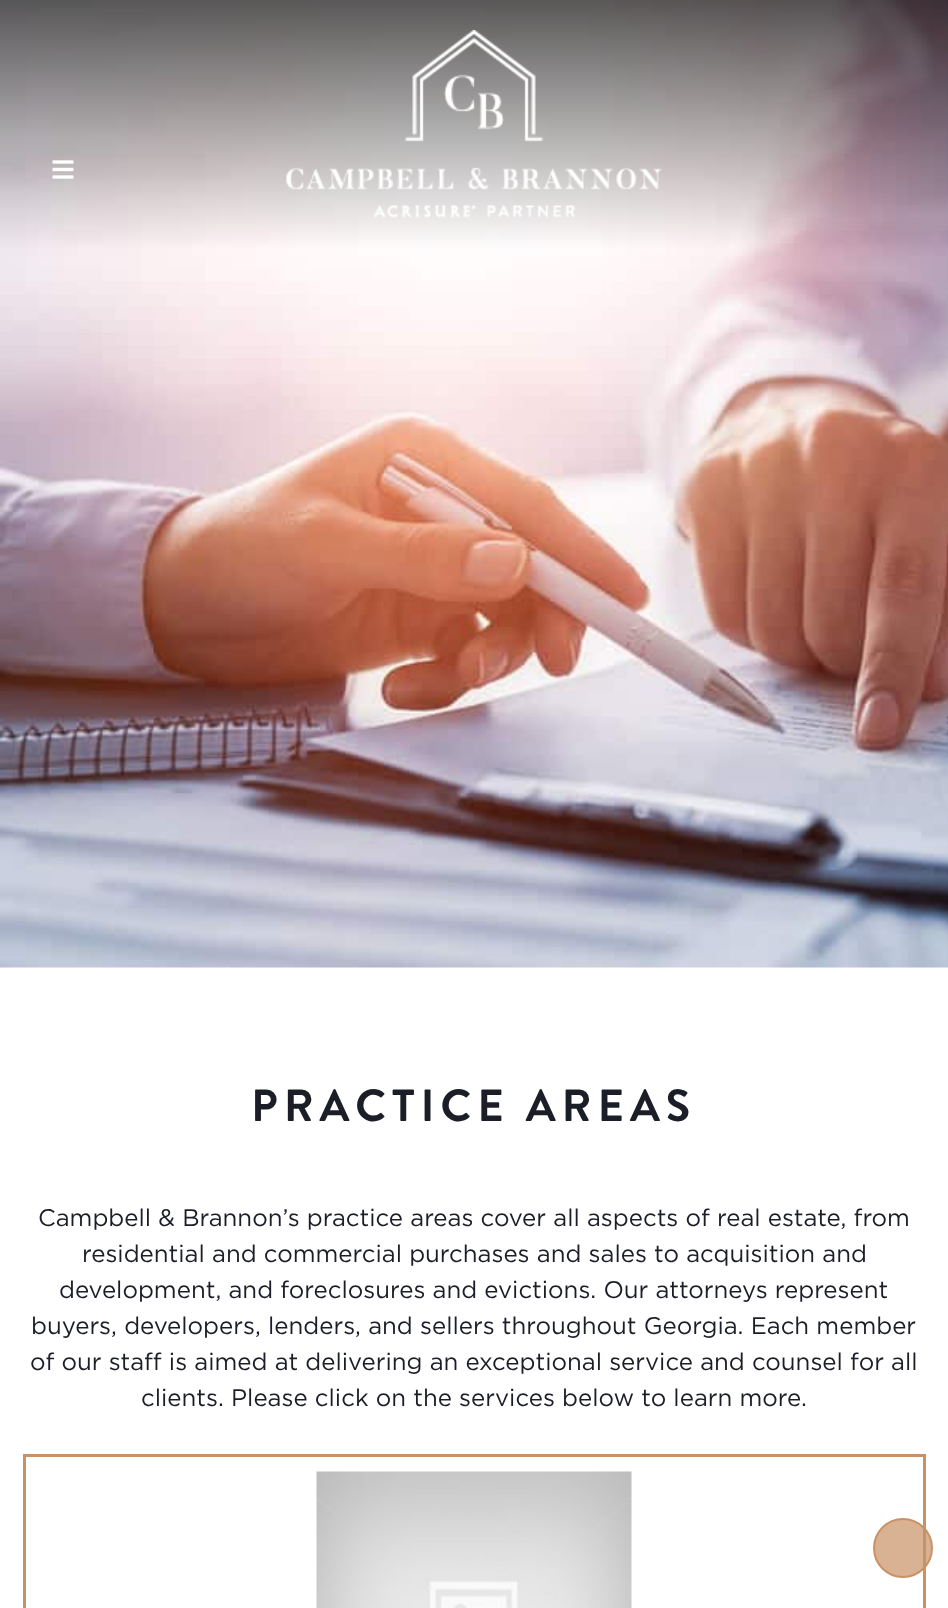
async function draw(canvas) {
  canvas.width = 948;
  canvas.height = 1608;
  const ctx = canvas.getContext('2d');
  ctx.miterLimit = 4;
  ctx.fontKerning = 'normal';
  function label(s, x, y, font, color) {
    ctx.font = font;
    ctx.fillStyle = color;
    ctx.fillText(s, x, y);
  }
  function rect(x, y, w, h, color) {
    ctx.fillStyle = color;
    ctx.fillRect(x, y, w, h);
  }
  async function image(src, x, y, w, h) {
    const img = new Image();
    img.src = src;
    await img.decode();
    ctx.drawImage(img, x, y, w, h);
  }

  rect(0, 0, 948, 1608, '#fff');
  await image('assets/img1.png', 0, 0, 948, 968);
  await image('assets/img2.png', 52, 160, 22, 19);
  await image('assets/img3.png', 286, 30, 376, 188);
  ctx.letterSpacing = '6px';
  label('PRACTICE AREAS', 251, 1121, 'bold 45px Brandon Grotesque', '#1b1d27');
  ctx.letterSpacing = '0px';
  label('Campbell & Brannon’s practice areas cover all aspects of real estate, from', 38, 1226, '24px Gotham', '#1b1d27');
  label('residential and commercial purchases and sales to acquisition and', 82, 1262, '24px Gotham', '#1b1d27');
  label('development, and foreclosures and evictions. Our attorneys represent', 59, 1298, '24px Gotham', '#1b1d27');
  label('buyers, developers, lenders, and sellers throughout Georgia. Each member', 31, 1334, '24px Gotham', '#1b1d27');
  label('of our staff is aimed at delivering an exceptional service and counsel for all', 30, 1370, '24px Gotham', '#1b1d27');
  label('clients. Please click on the services below to learn more.', 141, 1406, '24px Gotham', '#1b1d27');
  ctx.strokeStyle = '#c99166';
  ctx.lineWidth = 3;
  ctx.strokeRect(24.5, 1455.5, 900, 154);
  await image('assets/img4.png', 316, 1471, 316, 137);
  ctx.fillStyle = '#c99166b3';
  ctx.beginPath();
  ctx.arc(903, 1548, 29, 0, 2 * Math.PI);
  ctx.fill();
  ctx.lineWidth = 2;
  ctx.stroke();
}

draw(document.querySelector('canvas'));
